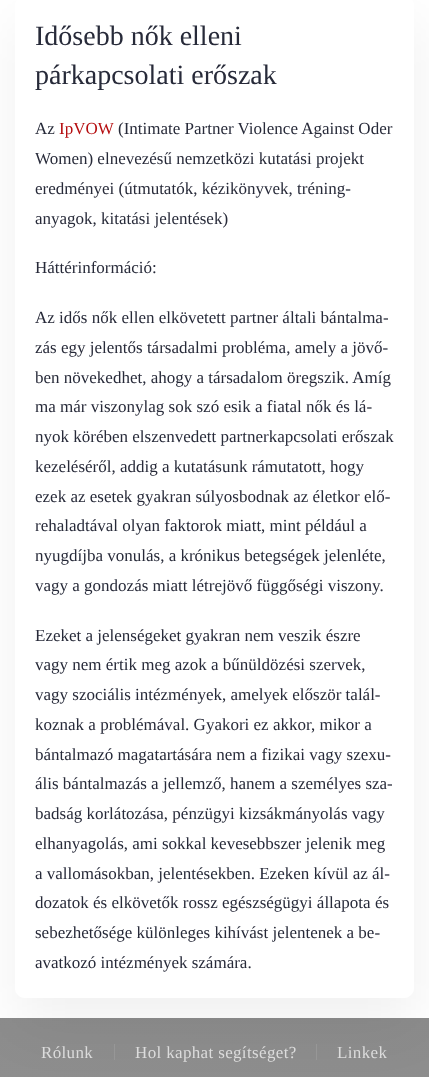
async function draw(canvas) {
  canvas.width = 429;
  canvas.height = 1077;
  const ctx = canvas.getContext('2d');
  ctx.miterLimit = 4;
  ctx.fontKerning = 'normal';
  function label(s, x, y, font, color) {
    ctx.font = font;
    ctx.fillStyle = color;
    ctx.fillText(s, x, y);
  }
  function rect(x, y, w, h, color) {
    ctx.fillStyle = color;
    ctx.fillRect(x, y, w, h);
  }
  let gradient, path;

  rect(0, 0, 429, 1077, '#fff');
  gradient = ctx.createLinearGradient(206, 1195, 223, 1000);
  gradient.addColorStop(0, '#909090');
  gradient.addColorStop(1, '#8c8c8c');
  ctx.fillStyle = gradient;
  ctx.fillRect(0, 1018, 429, 59);
  ctx.save();
  path = new Path2D('M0 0H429V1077H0ZM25-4H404C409.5-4 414 .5 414 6V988C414 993.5 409.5 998 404 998H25C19.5 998 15 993.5 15 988V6C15 .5 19.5-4 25-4Z');
  ctx.clip(path, 'evenodd');
  ctx.fillStyle = '#0000000f';
  ctx.filter = 'blur(28px)';
  ctx.beginPath();
  ctx.roundRect(17, 22, 399, 1002, 10);
  ctx.fill();
  ctx.filter = 'none';
  ctx.restore();
  label('Idősebb nők elleni', 35, 45, '28px Liberation Serif', '#272a39');
  label('párkapcsolati erőszak', 35, 84, '28px Liberation Serif', '#272a39');
  label('Az', 35, 134, '17px Liberation Serif', '#272a39');
  label('IpVOW', 59, 134, '17px Liberation Serif', '#b50d0f');
  label('(Intimate Partner Violence Against Oder', 118, 134, '17px Liberation Serif', '#272a39');
  label('Women) elnevezésű nemzetközi kutatási projekt', 35, 164, '17px Liberation Serif', '#272a39');
  label('eredményei (útmutatók, kézikönyvek, tréning-', 35, 194, '17px Liberation Serif', '#272a39');
  label('anyagok, kitatási jelentések)', 35, 224, '17px Liberation Serif', '#272a39');
  label('Háttérinformáció:', 35, 273, '17px Liberation Serif', '#272a39');
  label('Az idős nők ellen elkövetett partner általi bántalma-', 35, 323, '17px Liberation Serif', '#272a39');
  label('zás egy jelentős társadalmi probléma, amely a jövő-', 35, 353, '17px Liberation Serif', '#272a39');
  label('ben növekedhet, ahogy a társadalom öregszik. Amíg', 35, 383, '17px Liberation Serif', '#272a39');
  label('ma már viszonylag sok szó esik a fiatal nők és lá-', 35, 412, '17px Liberation Serif', '#272a39');
  label('nyok körében elszenvedett partnerkapcsolati erőszak', 35, 442, '17px Liberation Serif', '#272a39');
  label('kezeléséről, addig a kutatásunk rámutatott, hogy', 35, 472, '17px Liberation Serif', '#272a39');
  label('ezek az esetek gyakran súlyosbodnak az életkor elő-', 35, 502, '17px Liberation Serif', '#272a39');
  label('rehaladtával olyan faktorok miatt, mint például a', 35, 531, '17px Liberation Serif', '#272a39');
  label('nyugdíjba vonulás, a krónikus betegségek jelenléte,', 35, 561, '17px Liberation Serif', '#272a39');
  label('vagy a gondozás miatt létrejövő függőségi viszony.', 35, 591, '17px Liberation Serif', '#272a39');
  label('Ezeket a jelenségeket gyakran nem veszik észre', 35, 641, '17px Liberation Serif', '#272a39');
  label('vagy nem értik meg azok a bűnüldözési szervek,', 35, 670, '17px Liberation Serif', '#272a39');
  label('vagy szociális intézmények, amelyek először talál-', 35, 700, '17px Liberation Serif', '#272a39');
  label('koznak a problémával. Gyakori ez akkor, mikor a', 35, 730, '17px Liberation Serif', '#272a39');
  label('bántalmazó magatartására nem a fizikai vagy szexu-', 35, 760, '17px Liberation Serif', '#272a39');
  label('ális bántalmazás a jellemző, hanem a személyes sza-', 35, 789, '17px Liberation Serif', '#272a39');
  label('badság korlátozása, pénzügyi kizsákmányolás vagy', 35, 819, '17px Liberation Serif', '#272a39');
  label('elhanyagolás, ami sokkal kevesebbszer jelenik meg', 35, 849, '17px Liberation Serif', '#272a39');
  label('a vallomásokban, jelentésekben. Ezeken kívül az ál-', 35, 879, '17px Liberation Serif', '#272a39');
  label('dozatok és elkövetők rossz egészségügyi állapota és', 35, 908, '17px Liberation Serif', '#272a39');
  label('sebezhetősége különleges kihívást jelentenek a be-', 35, 938, '17px Liberation Serif', '#272a39');
  label('avatkozó intézmények számára.', 35, 968, '17px Liberation Serif', '#272a39');
  ctx.letterSpacing = '0.35px';
  label('Rólunk', 41, 1058, '17px Liberation Serif', '#dcdcdc');
  rect(114, 1044, 1, 16, '#979797');
  label('Hol kaphat segítséget?', 135, 1058, '17px Liberation Serif', '#dcdcdc');
  rect(316, 1044, 1, 16, '#979797');
  label('Linkek', 337, 1058, '17px Liberation Serif', '#dcdcdc');
}

draw(document.querySelector('canvas'));
